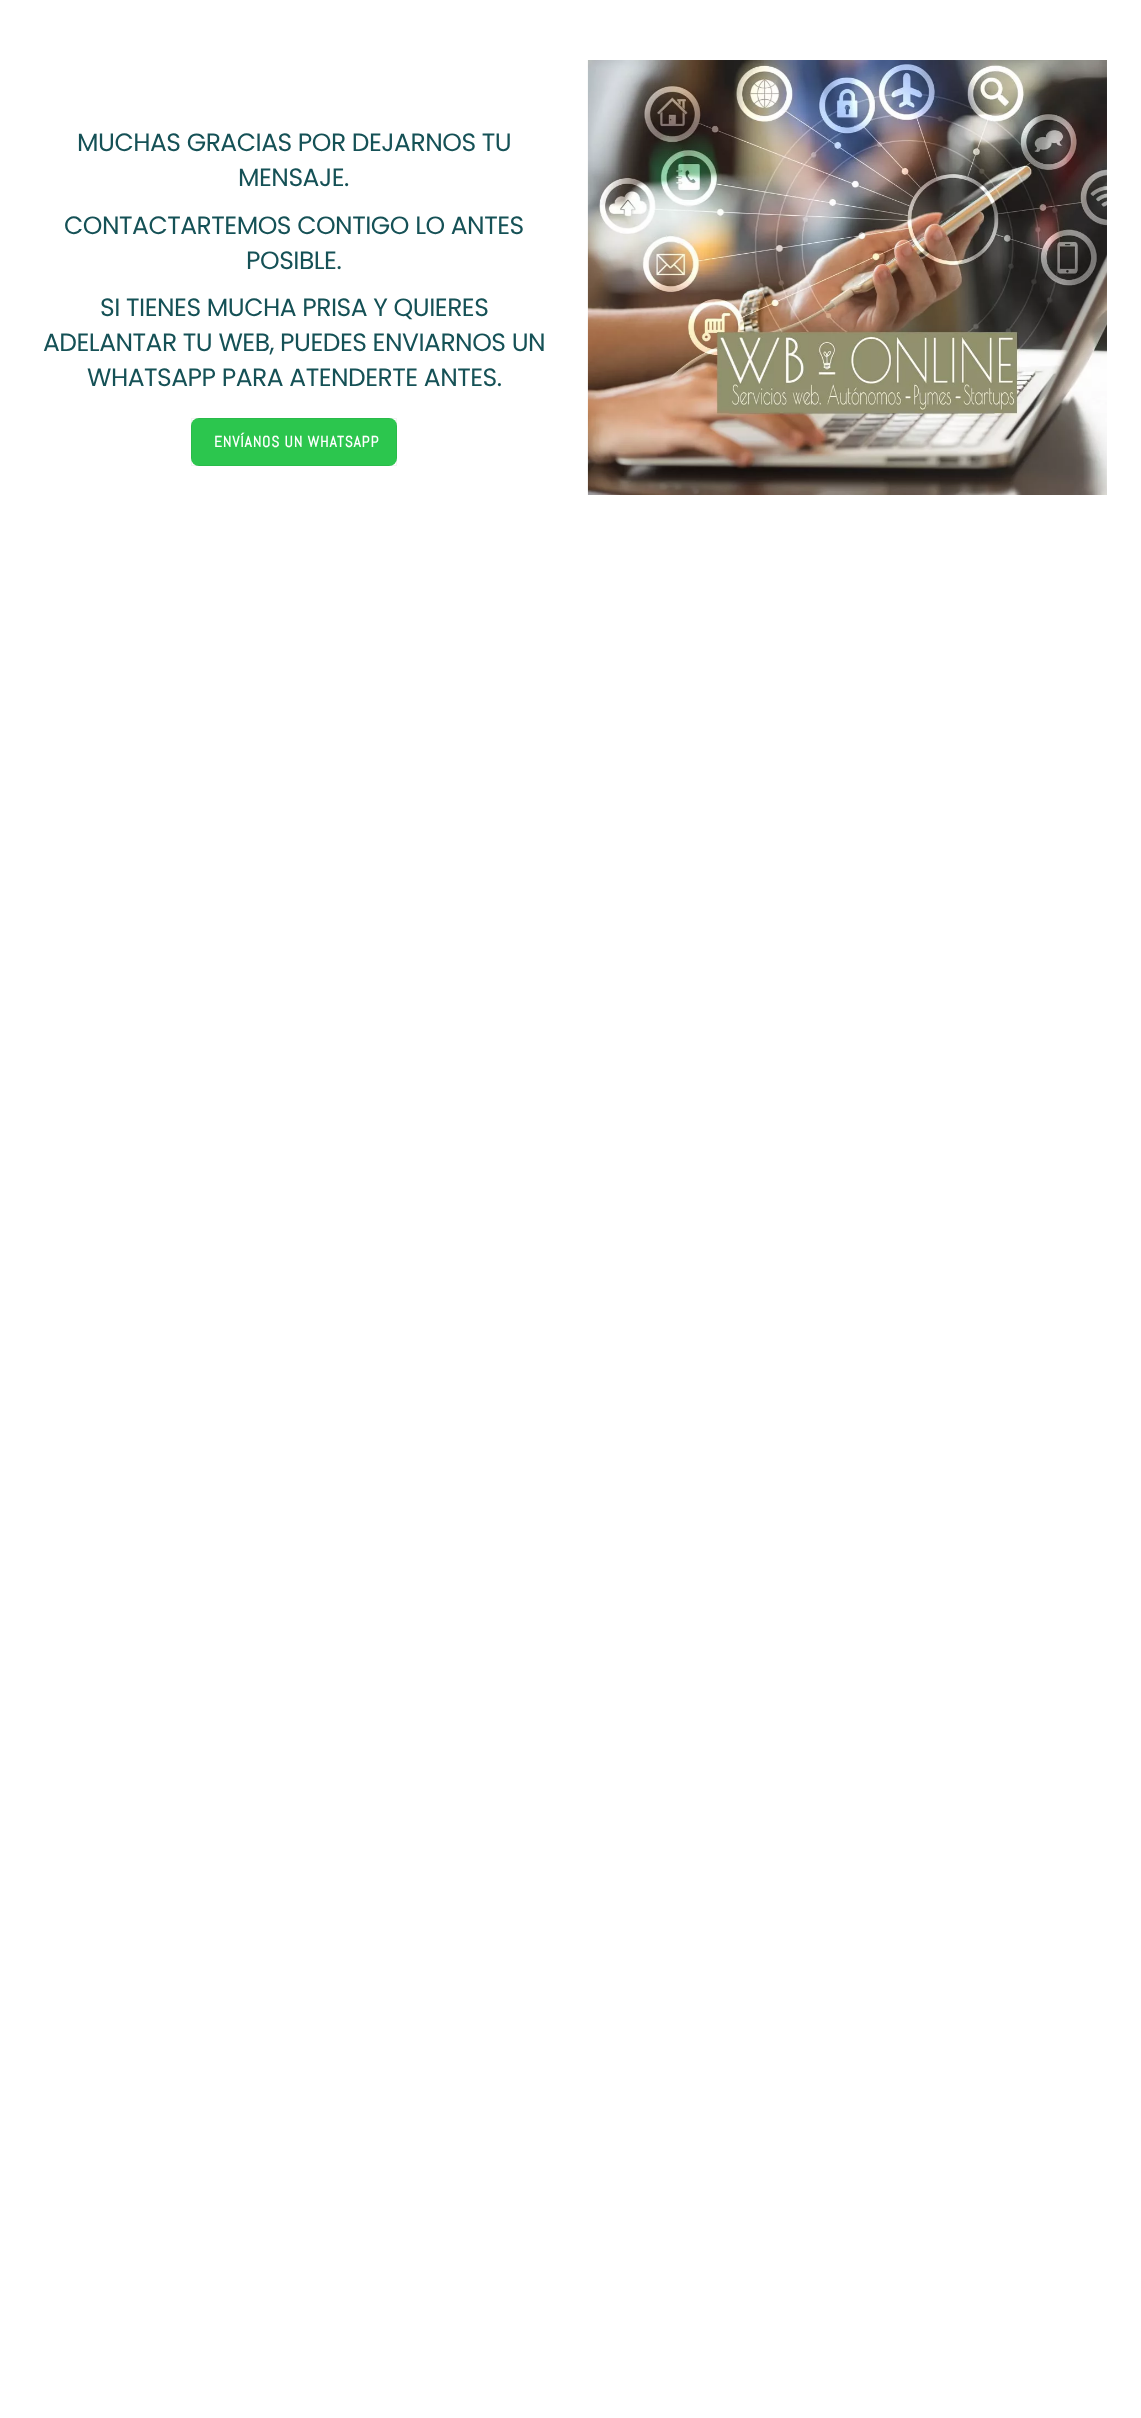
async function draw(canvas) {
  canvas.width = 1141;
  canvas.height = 2418;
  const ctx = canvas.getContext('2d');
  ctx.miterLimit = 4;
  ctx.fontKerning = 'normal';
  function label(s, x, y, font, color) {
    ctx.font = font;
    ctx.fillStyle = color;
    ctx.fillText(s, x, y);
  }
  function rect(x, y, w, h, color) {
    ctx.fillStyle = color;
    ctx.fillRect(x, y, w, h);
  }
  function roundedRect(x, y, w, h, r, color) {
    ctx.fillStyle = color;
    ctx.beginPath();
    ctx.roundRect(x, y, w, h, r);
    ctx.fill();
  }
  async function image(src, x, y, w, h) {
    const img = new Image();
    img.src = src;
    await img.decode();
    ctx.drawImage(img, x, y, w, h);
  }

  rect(0, 0, 1141, 2418, '#fff');
  ctx.letterSpacing = '-0.5px';
  label('MUCHAS GRACIAS POR DEJARNOS TU', 77, 151, '25px Poppins', '#155156');
  label('MENSAJE.', 238, 186, '25px Poppins', '#155156');
  label('CONTACTARTEMOS CONTIGO LO ANTES', 64, 234, '25px Poppins', '#155156');
  label('POSIBLE.', 246, 269, '25px Poppins', '#155156');
  label('SI TIENES MUCHA PRISA Y QUIERES', 100, 316, '25px Poppins', '#155156');
  label('ADELANTAR TU WEB, PUEDES ENVIARNOS UN', 43, 351, '25px Poppins', '#155156');
  label('WHATSAPP PARA ATENDERTE ANTES.', 87, 386, '25px Poppins', '#155156');
  roundedRect(191, 418, 206, 48, 8, '#2cc64e');
  ctx.strokeStyle = '#0000000d';
  ctx.strokeRect(191.5, 418.5, 205, 47);
  ctx.letterSpacing = '0.9px';
  label('ENVÍANOS UN WHATSAPP', 214, 447, 'bold 15.4px Abel', '#fff');
  await image('assets/img1.png', 587, 60, 520, 435);
}

draw(document.querySelector('canvas'));
